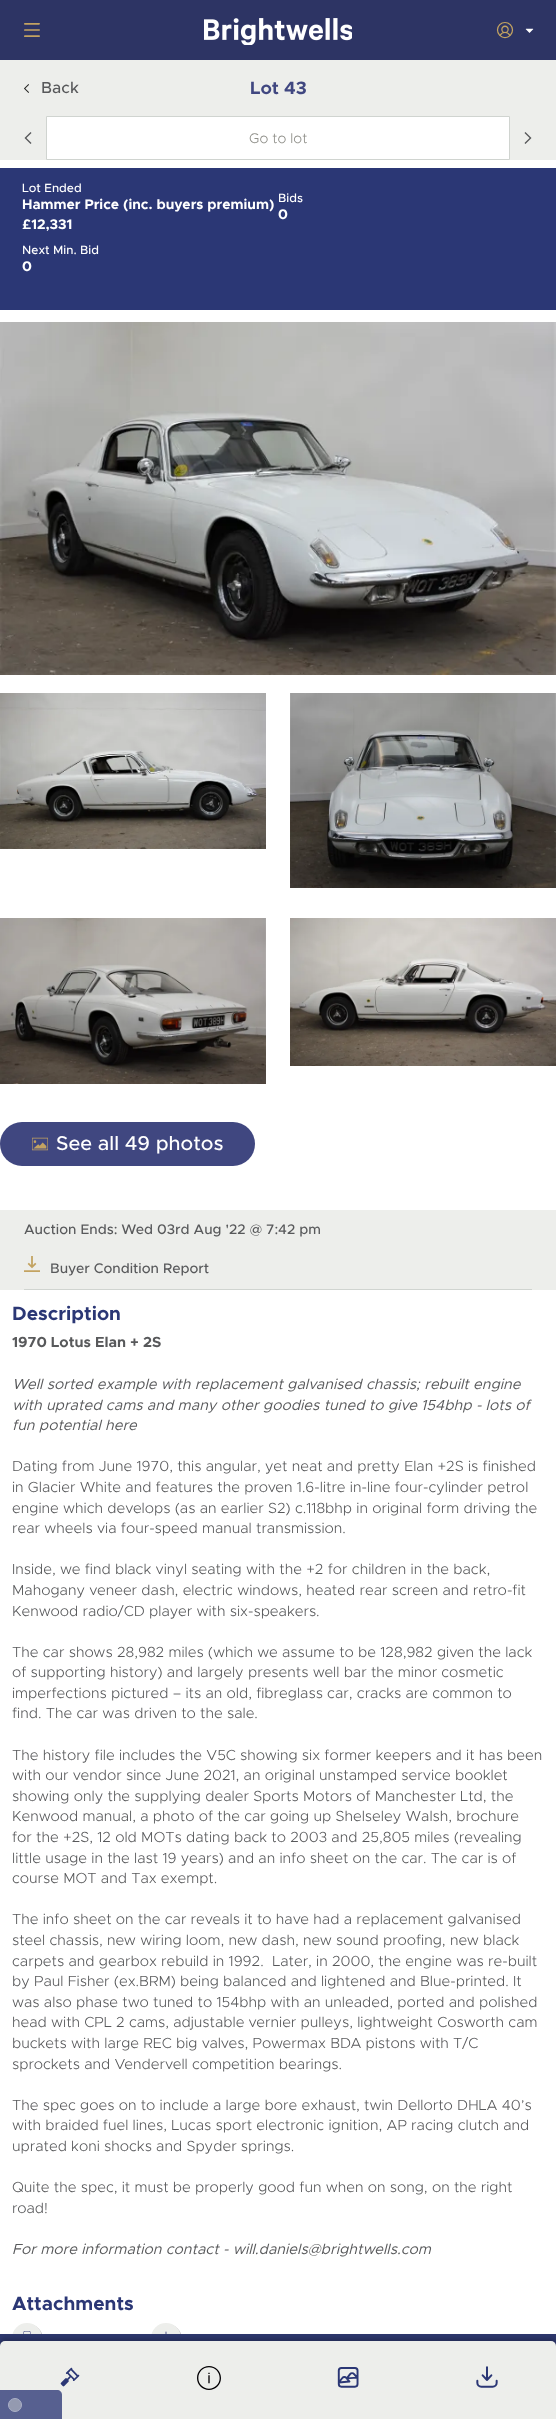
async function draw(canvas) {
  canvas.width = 556;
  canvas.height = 2419;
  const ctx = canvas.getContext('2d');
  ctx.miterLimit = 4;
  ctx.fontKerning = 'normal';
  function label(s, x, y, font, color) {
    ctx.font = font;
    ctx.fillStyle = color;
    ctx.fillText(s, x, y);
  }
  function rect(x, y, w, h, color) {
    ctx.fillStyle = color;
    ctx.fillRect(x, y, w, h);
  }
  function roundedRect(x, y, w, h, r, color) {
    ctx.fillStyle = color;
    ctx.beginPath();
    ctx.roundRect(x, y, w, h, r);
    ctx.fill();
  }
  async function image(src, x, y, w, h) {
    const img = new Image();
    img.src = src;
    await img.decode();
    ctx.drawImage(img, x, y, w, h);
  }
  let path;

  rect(0, 0, 556, 2419, '#fff');
  rect(0, 0, 556, 60, '#2d3464');
  await image('assets/img1.png', 24, 23, 16, 14);
  await image('assets/img2.png', 204, 18, 148, 27);
  await image('assets/img3.png', 496, 22, 18, 17);
  await image('assets/img4.png', 525, 28, 9, 5);
  rect(0, 60, 556, 100, '#edeeeb');
  await image('assets/img5.png', 24, 84, 5, 9);
  label('Back', 41, 93, '500 16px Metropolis', '#58595b');
  label('Lot 43', 250, 94, 'bold 18px Metropolis', '#404780');
  await image('assets/img6.png', 24, 132, 8, 12);
  ctx.fillStyle = '#fff';
  ctx.beginPath();
  ctx.rect(46.5, 116.5, 463, 43);
  ctx.fill();
  ctx.strokeStyle = '#d0d4d0';
  ctx.stroke();
  label('Go to lot', 249, 143, '300 14px Metropolis', '#8f8f89');
  await image('assets/img7.png', 524, 132, 8, 12);
  rect(0, 168, 556, 142, '#2b3775');
  label('Lot Ended', 22, 192, '500 12px Metropolis', '#fff');
  label('Hammer Price (inc. buyers premium)', 22, 209, 'bold 14px Metropolis', '#fff');
  label('£12,331', 22, 229, 'bold 14px Metropolis', '#fff');
  label('Bids', 278, 202, '500 12px Metropolis', '#fff');
  label('0', 278, 219, 'bold 14px Metropolis', '#fff');
  label('Next Min. Bid', 22, 254, '500 12px Metropolis', '#fff');
  label('0', 22, 271, 'bold 14px Metropolis', '#fff');
  await image('assets/img8.png', 0, 322, 556, 353);
  await image('assets/img9.png', 0, 693, 266, 156);
  await image('assets/img10.png', 290, 693, 266, 195);
  await image('assets/img11.png', 0, 918, 266, 166);
  await image('assets/img12.png', 290, 918, 266, 148);
  roundedRect(0, 1122, 255, 44, 22, '#404780');
  await image('assets/img13.png', 32, 1137, 16, 14);
  label('See all 49 photos', 56, 1150, '500 20px Metropolis', '#fff');
  rect(0, 1210, 556, 80, '#edeeeb');
  rect(24, 1289, 508, 1, '#d0d4d0');
  label('Auction Ends: Wed 03rd Aug \'22 @ 7:42 pm', 24, 1234, '500 14px Metropolis', '#58595b');
  await image('assets/img14.png', 24, 1256, 16, 16);
  label('Buyer Condition Report', 50, 1273, '500 14px Metropolis', '#58595b');
  label('Description', 12, 1320, 'bold 19.25px Metropolis', '#2b3775');
  label('1970 Lotus Elan + 2S', 12, 1347, 'bold 14.7px Metropolis', '#58595b');
  label('Well sorted example with replacement galvanised chassis; rebuilt engine', 12, 1389, 'italic 14.7px Metropolis', '#58595b');
  label('with uprated cams and many other goodies tuned to give 154bhp - lots of', 12, 1410, 'italic 14.7px Metropolis', '#58595b');
  label('fun potential here', 12, 1430, 'italic 14.7px Metropolis', '#58595b');
  label('Dating from June 1970, this angular, yet neat and pretty Elan +2S is finished', 12, 1471, '300 14.7px Metropolis', '#58595b');
  label('in Glacier White and features the proven 1.6-litre in-line four-cylinder petrol', 12, 1492, '300 14.7px Metropolis', '#58595b');
  label('engine which develops (as an earlier S2) c.118bhp in original form driving the', 12, 1513, '300 14.7px Metropolis', '#58595b');
  label('rear wheels via four-speed manual transmission.', 12, 1533, '300 14.7px Metropolis', '#58595b');
  label('Inside, we find black vinyl seating with the +2 for children in the back,', 12, 1574, '300 14.7px Metropolis', '#58595b');
  label('Mahogany veneer dash, electric windows, heated rear screen and retro-fit', 12, 1595, '300 14.7px Metropolis', '#58595b');
  label('Kenwood radio/CD player with six-speakers.', 12, 1616, '300 14.7px Metropolis', '#58595b');
  label('The car shows 28,982 miles (which we assume to be 128,982 given the lack', 12, 1657, '300 14.7px Metropolis', '#58595b');
  label('of supporting history) and largely presents well bar the minor cosmetic', 12, 1677, '300 14.7px Metropolis', '#58595b');
  label('imperfections pictured – its an old, fibreglass car, cracks are common to', 12, 1698, '300 14.7px Metropolis', '#58595b');
  label('find. The car was driven to the sale.', 12, 1718, '300 14.7px Metropolis', '#58595b');
  label('The history file includes the V5C showing six former keepers and it has been', 12, 1760, '300 14.7px Metropolis', '#58595b');
  label('with our vendor since June 2021, an original unstamped service booklet', 12, 1780, '300 14.7px Metropolis', '#58595b');
  label('showing only the supplying dealer Sports Motors of Manchester Ltd, the', 12, 1801, '300 14.7px Metropolis', '#58595b');
  label('Kenwood manual, a photo of the car going up Shelseley Walsh, brochure', 12, 1821, '300 14.7px Metropolis', '#58595b');
  label('for the +2S, 12 old MOTs dating back to 2003 and 25,805 miles (revealing', 12, 1842, '300 14.7px Metropolis', '#58595b');
  label('little usage in the last 19 years) and an info sheet on the car. The car is of', 12, 1863, '300 14.7px Metropolis', '#58595b');
  label('course MOT and Tax exempt.', 12, 1883, '300 14.7px Metropolis', '#58595b');
  label('The info sheet on the car reveals it to have had a replacement galvanised', 12, 1924, '300 14.7px Metropolis', '#58595b');
  label('steel chassis, new wiring loom, new dash, new sound proofing, new black', 12, 1945, '300 14.7px Metropolis', '#58595b');
  label('carpets and gearbox rebuild in 1992.  Later, in 2000, the engine was re-built', 12, 1966, '300 14.7px Metropolis', '#58595b');
  label('by Paul Fisher (ex.BRM) being balanced and lightened and Blue-printed. It', 12, 1986, '300 14.7px Metropolis', '#58595b');
  label('was also phase two tuned to 154bhp with an unleaded, ported and polished', 12, 2007, '300 14.7px Metropolis', '#58595b');
  label('head with CPL 2 cams, adjustable vernier pulleys, lightweight Cosworth cam', 12, 2027, '300 14.7px Metropolis', '#58595b');
  label('buckets with large REC big valves, Powermax BDA pistons with T/C', 12, 2048, '300 14.7px Metropolis', '#58595b');
  label('sprockets and Vendervell competition bearings.', 12, 2069, '300 14.7px Metropolis', '#58595b');
  label('The spec goes on to include a large bore exhaust, twin Dellorto DHLA 40’s', 12, 2110, '300 14.7px Metropolis', '#58595b');
  label('with braided fuel lines, Lucas sport electronic ignition, AP racing clutch and', 12, 2130, '300 14.7px Metropolis', '#58595b');
  label('uprated koni shocks and Spyder springs.', 12, 2151, '300 14.7px Metropolis', '#58595b');
  label('Quite the spec, it must be properly good fun when on song, on the right', 12, 2192, '300 14.7px Metropolis', '#58595b');
  label('road!', 12, 2213, '300 14.7px Metropolis', '#58595b');
  label('For more information contact - will.daniels@brightwells.com', 12, 2254, 'italic 14.7px Metropolis', '#58595b');
  label('Attachments', 12, 2310, 'bold 19.25px Metropolis', '#2b3775');
  ctx.fillStyle = '#00000040';
  ctx.filter = 'blur(0.5px)';
  ctx.beginPath();
  ctx.roundRect(13, 2324, 30, 30, 15);
  ctx.fill();
  ctx.filter = 'none';
  ctx.fillStyle = '#edeeeb';
  ctx.beginPath();
  ctx.arc(27, 2338, 15, 0, 2 * Math.PI);
  ctx.fill();
  await image('assets/img15.png', 23, 2331, 8, 3);
  ctx.fillStyle = '#00000040';
  ctx.filter = 'blur(0.5px)';
  ctx.beginPath();
  ctx.roundRect(152, 2324, 30, 30, 15);
  ctx.fill();
  ctx.filter = 'none';
  ctx.fillStyle = '#edeeeb';
  ctx.beginPath();
  ctx.arc(166, 2338, 15, 0, 2 * Math.PI);
  ctx.fill();
  await image('assets/img16.png', 165, 2331, 2, 3);
  rect(0, 2334, 556, 12, '#2e386e');
  ctx.fillStyle = '#00000033';
  ctx.filter = 'blur(2px)';
  ctx.beginPath();
  ctx.roundRect(0, 2338, 556, 78, 5);
  ctx.fill();
  ctx.filter = 'none';
  ctx.fillStyle = '#edeeeb';
  ctx.beginPath();
  ctx.roundRect(0, 2341, 556, 78, [5, 5, 0, 0]);
  ctx.fill();
  await image('assets/img17.png', 60, 2367, 20, 20);
  await image('assets/img18.png', 197, 2366, 24, 24);
  await image('assets/img19.png', 337, 2367, 22, 21);
  await image('assets/img20.png', 476, 2366, 22, 22);
  ctx.fillStyle = '#576090';
  path = new Path2D('M0 2390H57C60 2390 62 2392 62 2395V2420H0Z');
  ctx.fill(path);
  ctx.fillStyle = '#949ab0';
  ctx.beginPath();
  ctx.arc(15, 2405, 6.5, 0, 2 * Math.PI);
  ctx.fill();
  ctx.strokeStyle = '#abb0c8';
  ctx.stroke();
}

draw(document.querySelector('canvas'));
